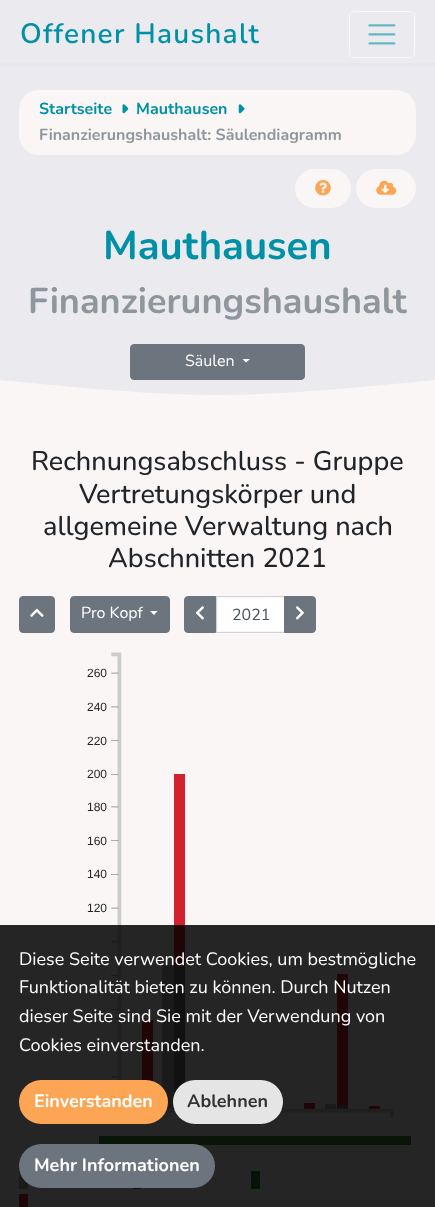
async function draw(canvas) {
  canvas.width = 435;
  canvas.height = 1207;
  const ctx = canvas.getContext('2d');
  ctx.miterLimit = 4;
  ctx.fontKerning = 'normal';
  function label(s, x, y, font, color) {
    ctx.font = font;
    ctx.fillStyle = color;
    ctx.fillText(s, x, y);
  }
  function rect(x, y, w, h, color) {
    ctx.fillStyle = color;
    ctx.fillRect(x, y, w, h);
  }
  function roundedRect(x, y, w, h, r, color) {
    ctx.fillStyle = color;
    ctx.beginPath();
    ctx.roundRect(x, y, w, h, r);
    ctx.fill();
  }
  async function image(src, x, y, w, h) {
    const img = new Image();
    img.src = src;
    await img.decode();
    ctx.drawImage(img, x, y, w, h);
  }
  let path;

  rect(0, 0, 435, 1207, '#faf6f6');
  rect(0, 0, 435, 63, '#ebeaef');
  rect(0, 63, 435, 3, '#e8e6ee');
  ctx.letterSpacing = '1.25px';
  label('Offener Haushalt', 20, 43, '600 28px Nunito', '#0091a6');
  ctx.beginPath();
  ctx.roundRect(349.5, 11.5, 65, 46, 4.5);
  ctx.strokeStyle = '#faf6f6';
  ctx.stroke();
  await image('assets/img1.png', 368, 24, 28, 21);
  rect(0, 66, 435, 314, '#ebeaef');
  roundedRect(19, 90, 397, 65, 20, '#faf6f6');
  ctx.letterSpacing = '0px';
  label('Startseite', 39, 114, 'bold 16px Nunito', '#0091a6');
  await image('assets/img2.png', 122, 104, 7, 10);
  label('Mauthausen', 136, 114, 'bold 16px Nunito', '#0091a6');
  await image('assets/img3.png', 238, 104, 7, 10);
  label('Finanzierungshaushalt: Säulendiagramm', 39, 140, 'bold 16px Nunito', '#8e989c');
  roundedRect(295, 169, 56, 39, 19.5, '#faf6f6');
  await image('assets/img4.png', 315, 180, 16, 16);
  roundedRect(356, 169, 60, 39, 19.5, '#faf6f6');
  await image('assets/img5.png', 376, 180, 21, 15);
  label('Mauthausen', 103, 259, 'bold 40px Nunito', '#0091a6');
  label('Finanzierungshaushalt', 28, 313, 'bold 36px Nunito', '#8e989c');
  ctx.fillStyle = '#6c757d';
  ctx.beginPath();
  ctx.roundRect(130.5, 344.5, 174, 35, 3.5);
  ctx.fill();
  ctx.strokeStyle = '#6c757d';
  ctx.stroke();
  label('Säulen', 185, 366, '16px Nunito', '#fff');
  path = new Path2D('M242.5 359H250L246 362.5Z');
  ctx.fill(path);
  ctx.save();
  ctx.beginPath();
  ctx.rect(0, 380, 435, 16);
  ctx.clip();
  ctx.fillStyle = '#ebeaef';
  path = new Path2D('M0 301H435V380C338 390 266 395 218 395C169 395 97 390 0 380Z');
  ctx.fill(path, 'evenodd');
  ctx.restore();
  label('Rechnungsabschluss - Gruppe', 31, 470, '500 27px Nunito', '#212529');
  label('Vertretungskörper und', 79, 503, '500 27px Nunito', '#212529');
  label('allgemeine Verwaltung nach', 43, 535, '500 27px Nunito', '#212529');
  label('Abschnitten 2021', 108, 567, '500 27px Nunito', '#212529');
  ctx.fillStyle = '#6c757d';
  ctx.beginPath();
  ctx.roundRect(19.5, 596.5, 35, 36, 3.5);
  ctx.fill();
  ctx.stroke();
  await image('assets/img6.png', 30, 608, 14, 9);
  ctx.beginPath();
  ctx.roundRect(70.5, 596.5, 99, 36, 3.5);
  ctx.fill();
  ctx.stroke();
  label('Pro Kopf', 81, 618, '16px Nunito', '#fff');
  path = new Path2D('M150 611H157.5L154 615Z');
  ctx.fill(path);
  ctx.fillStyle = '#6c757d';
  ctx.beginPath();
  ctx.roundRect(184.5, 596.5, 31, 36, [3.5, 0, 0, 3.5]);
  ctx.fill();
  ctx.stroke();
  await image('assets/img7.png', 195, 606, 9, 14);
  rect(218, 598, 66, 33, '#fff');
  ctx.strokeStyle = '#ced4da';
  ctx.strokeRect(216.5, 596.5, 68, 36);
  label('2021', 232, 620, '16px Nunito', '#495057');
  ctx.fillStyle = '#6c757d';
  ctx.beginPath();
  ctx.roundRect(284.5, 596.5, 31, 36, [0, 3.5, 3.5, 0]);
  ctx.fill();
  ctx.strokeStyle = '#6c757d';
  ctx.stroke();
  await image('assets/img8.png', 295, 606, 9, 14);
  await image('assets/img9.png', 99, 652, 312, 493);
  label('260', 87, 677, '12px Liberation Sans', '#212529');
  label('240', 87, 711, '12px Liberation Sans', '#212529');
  label('220', 87, 745, '12px Liberation Sans', '#212529');
  label('200', 87, 778, '12px Liberation Sans', '#212529');
  label('180', 87, 811, '12px Liberation Sans', '#212529');
  label('160', 87, 845, '12px Liberation Sans', '#212529');
  label('140', 87, 878, '12px Liberation Sans', '#212529');
  label('120', 87, 912, '12px Liberation Sans', '#212529');
  rect(19, 1171, 9, 18, '#aeaeae');
  rect(133, 1188, 8, 1, '#727272');
  rect(251, 1171, 9, 18, '#238823');
  rect(19, 1194, 9, 13, '#d2222d');
  rect(0, 925, 435, 282, '#000000d9');
  label('Diese Seite verwendet Cookies, um bestmögliche', 19, 965, '18px Nunito', '#fff');
  label('Funktionalität bieten zu können. Durch Nutzen', 19, 993, '18px Nunito', '#fff');
  label('dieser Seite sind Sie mit der Verwendung von', 19, 1022, '18px Nunito', '#fff');
  label('Cookies einverstanden.', 19, 1051, '18px Nunito', '#fff');
  roundedRect(19, 1080, 149, 44, 22, '#fca655');
  label('Einverstanden', 34, 1107, 'bold 18px Nunito', '#fff');
  roundedRect(173, 1080, 110, 44, 22, '#e5e5e5');
  label('Ablehnen', 187, 1107, 'bold 18px Nunito', '#333');
  roundedRect(19, 1144, 196, 44, 22, '#6c757d');
  label('Mehr Informationen', 34, 1171, 'bold 18px Nunito', '#fff');
}

draw(document.querySelector('canvas'));
